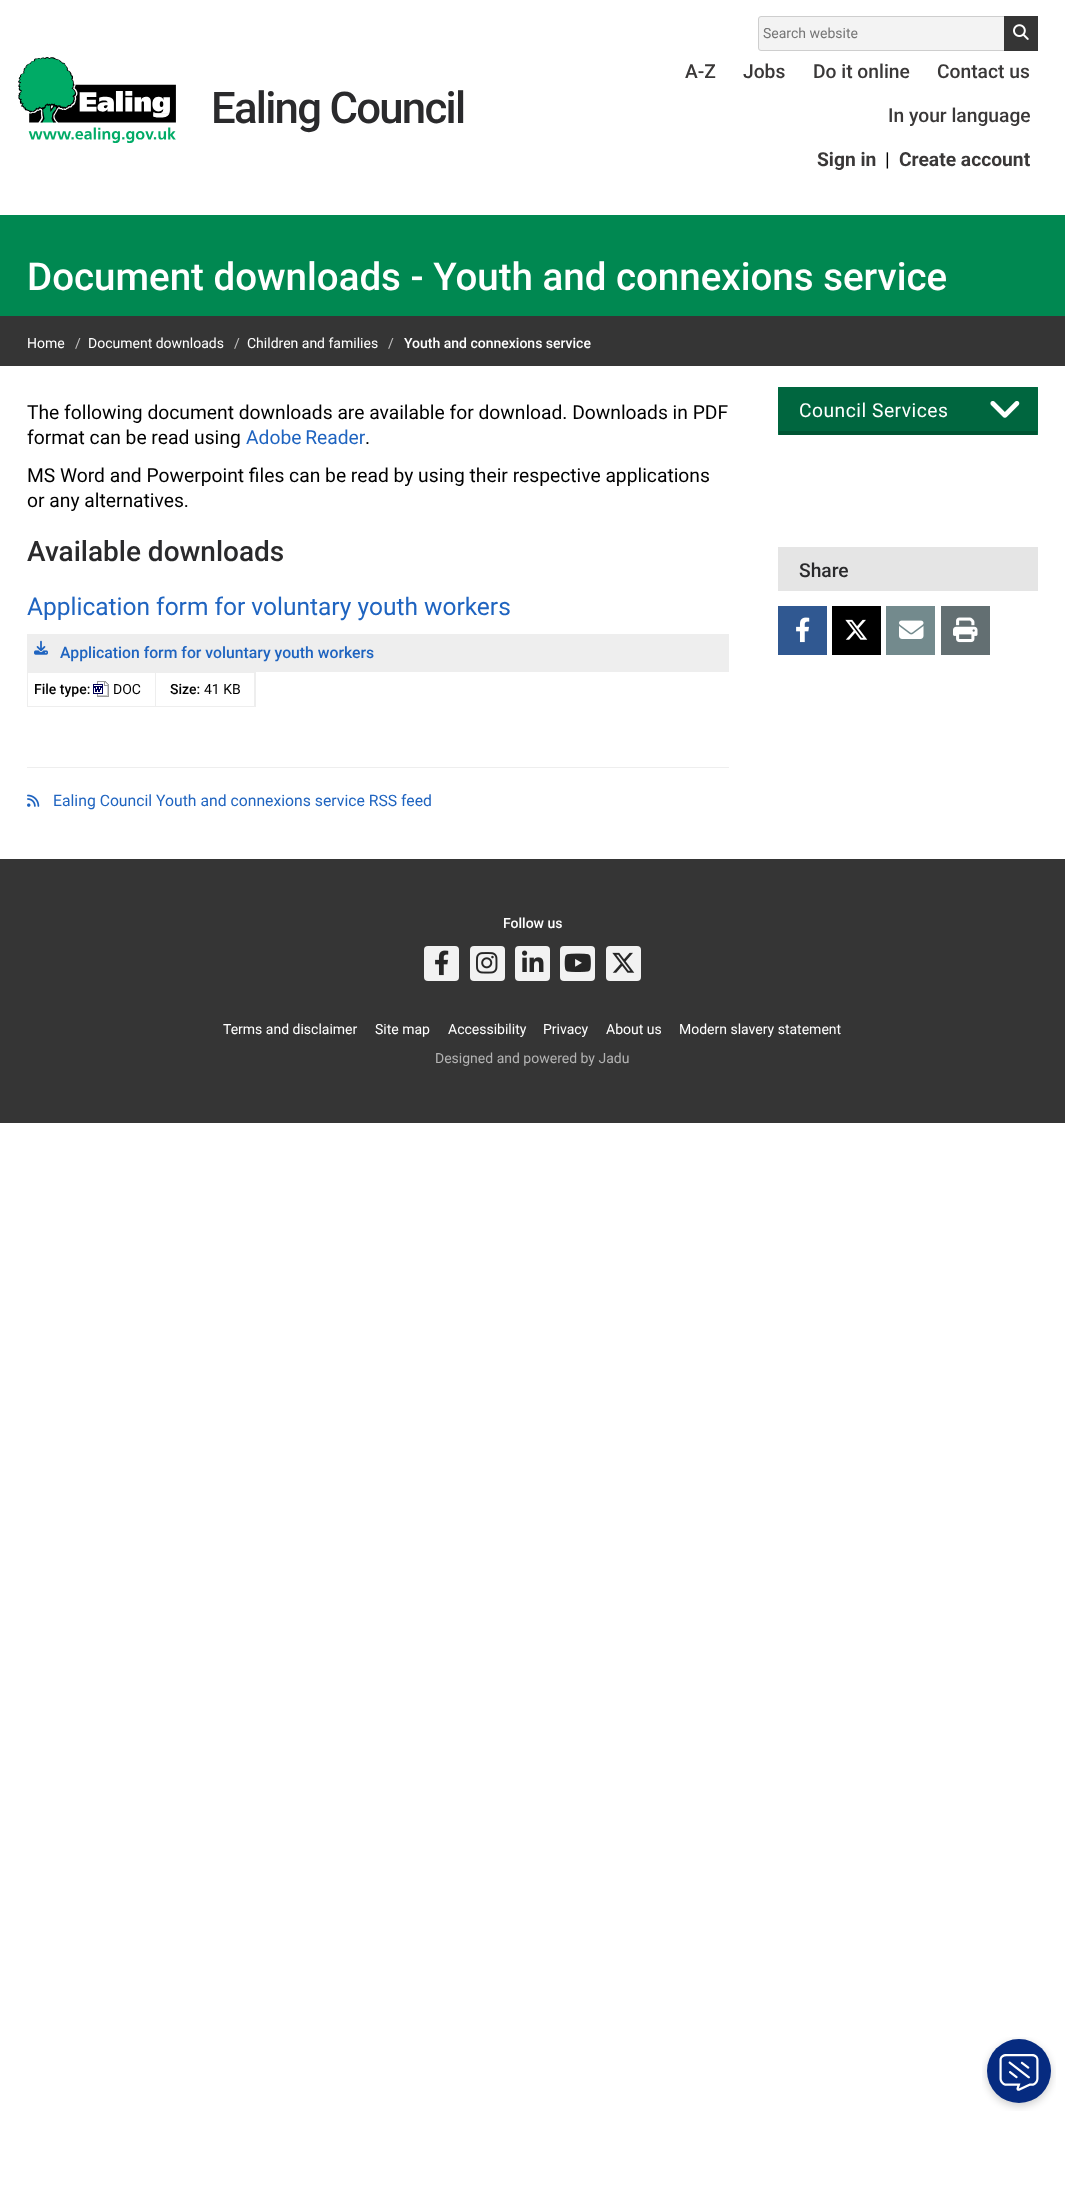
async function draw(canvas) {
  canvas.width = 1065;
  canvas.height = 2193;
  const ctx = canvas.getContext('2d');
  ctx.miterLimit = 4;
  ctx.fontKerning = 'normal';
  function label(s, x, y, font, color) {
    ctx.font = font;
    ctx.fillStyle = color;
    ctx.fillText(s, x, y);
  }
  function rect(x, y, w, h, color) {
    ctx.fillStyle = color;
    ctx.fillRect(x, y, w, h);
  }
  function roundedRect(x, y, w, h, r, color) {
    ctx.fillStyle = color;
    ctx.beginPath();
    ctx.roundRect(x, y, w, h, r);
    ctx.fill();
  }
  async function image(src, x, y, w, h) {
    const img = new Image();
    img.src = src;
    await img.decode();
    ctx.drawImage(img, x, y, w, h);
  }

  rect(0, 0, 1065, 2193, '#fff');
  ctx.fillStyle = '#f3f3f3';
  ctx.beginPath();
  ctx.roundRect(758.5, 16.5, 279, 34, 2.5);
  ctx.fill();
  ctx.strokeStyle = '#cecece';
  ctx.stroke();
  label('Search website', 763, 38, '14px Roboto', '#757575');
  rect(1004, 16, 34, 35, '#353535');
  await image('assets/img1.png', 1013, 24, 16, 16);
  await image('assets/img2.png', 18, 57, 158, 86);
  ctx.letterSpacing = '-1.75px';
  label('Ealing Council', 211, 123, '500 43.75px Roboto', '#2a2a2c');
  ctx.letterSpacing = '0px';
  label('A-Z', 685, 78, '500 19.25px Roboto', '#3a3838');
  label('Jobs', 743, 78, '500 19.25px Roboto', '#3a3838');
  label('Do it online', 813, 78, '500 19.25px Roboto', '#3a3838');
  label('Contact us', 937, 78, '500 19.25px Roboto', '#3a3838');
  label('In your language', 888, 122, '500 19.25px Roboto', '#3a3838');
  label('Sign in', 817, 166, 'bold 19.25px Roboto', '#3a3838');
  label('|', 885, 166, '19.25px Roboto', '#000');
  label('Create account', 899, 166, 'bold 19.25px Roboto', '#3a3838');
  rect(0, 215, 1065, 101, '#008851');
  label('Document downloads - Youth and connexions service', 27, 290, '500 38.5px Roboto', '#fff');
  rect(0, 316, 1065, 50, '#353535');
  label('Home', 27, 348, '14px Roboto', '#fff');
  label('/', 75, 348, '14px Roboto', '#c2c1c1');
  label('Document downloads', 88, 348, '14px Roboto', '#fff');
  label('/', 234, 348, '14px Roboto', '#c2c1c1');
  label('Children and families', 247, 348, '14px Roboto', '#fff');
  label('/', 388, 348, '14px Roboto', '#c2c1c1');
  label('Youth and connexions service', 404, 348, '500 14px Roboto', '#fff');
  label('The following document downloads are available for download. Downloads in PDF', 27, 419, '19.25px Roboto', '#000');
  label('format can be read using', 27, 444, '19.25px Roboto', '#000');
  ctx.wordSpacing = '-1px';
  label('Adobe Reader', 246, 444, '19.25px Roboto', '#1f64c0');
  ctx.wordSpacing = '0px';
  label('.', 365, 444, '19.25px Roboto', '#000');
  label('MS Word and Powerpoint files can be read by using their respective applications', 27, 482, '19.25px Roboto', '#000');
  label('or any alternatives.', 27, 507, '19.25px Roboto', '#000');
  label('Available downloads', 27, 561, '500 28px Roboto', '#2a2a2c');
  rect(27, 767, 702, 1, '#eee');
  label('Application form for voluntary youth workers', 27, 615, '24.5px Roboto', '#1f64c0');
  rect(27, 634, 702, 38, '#eee');
  await image('assets/img3.png', 34, 640, 14, 15);
  label('Application form for voluntary youth workers', 60, 658, '500 15.75px Roboto', '#1f64c0');
  ctx.strokeStyle = '#eee';
  ctx.strokeRect(27.5, 672.5, 228, 34);
  rect(155, 673, 1, 33, '#eee');
  label('File type:', 34, 694, '500 14px Roboto', '#000');
  await image('assets/img4.png', 93, 681, 16, 16);
  label('DOC', 113, 694, '14px Roboto', '#000');
  rect(254, 673, 1, 33, '#eee');
  label('Size:', 170, 694, '500 14px Roboto', '#000');
  label('41 KB', 204, 694, '14px Roboto', '#000');
  await image('assets/img5.png', 27, 794, 13, 13);
  label('Ealing Council Youth and connexions service RSS feed', 53, 806, '15.75px Roboto', '#1f64c0');
  rect(778, 387, 260, 48, '#008851');
  roundedRect(778, 387, 260, 48, 2, '#00663f');
  rect(779, 431, 258, 4, '#053');
  ctx.letterSpacing = '0.5px';
  label('Council Services', 799, 417, '19.25px Roboto', '#fff');
  await image('assets/img6.png', 990, 401, 30, 17);
  rect(778, 547, 260, 44, '#e5e5e5');
  ctx.letterSpacing = '0px';
  label('Share', 799, 577, '500 19.25px Roboto', '#2a2a2c');
  rect(778, 606, 49, 49, '#305891');
  await image('assets/img7.png', 796, 617, 14, 26);
  rect(832, 606, 49, 49, '#000');
  await image('assets/img8.png', 845, 619, 23, 21);
  rect(886, 606, 49, 49, '#738a8d');
  await image('assets/img9.png', 899, 620, 25, 19);
  rect(941, 606, 49, 49, '#636f72');
  await image('assets/img10.png', 953, 617, 25, 26);
  rect(0, 859, 1065, 264, '#353535');
  label('Follow us', 503, 928, '500 14px Roboto', '#fff');
  roundedRect(424, 946, 35, 35, 4, '#f2f2f2');
  await image('assets/img11.png', 435, 950, 14, 26);
  roundedRect(470, 946, 35, 35, 4, '#f2f2f2');
  await image('assets/img12.png', 476, 952, 22, 22);
  roundedRect(515, 946, 35, 35, 4, '#f2f2f2');
  await image('assets/img13.png', 522, 950, 22, 22);
  roundedRect(560, 946, 35, 35, 4, '#f2f2f2');
  await image('assets/img14.png', 564, 953, 27, 19);
  roundedRect(606, 946, 35, 35, 4, '#f2f2f2');
  await image('assets/img15.png', 612, 952, 23, 21);
  label('Terms and disclaimer', 223, 1034, '14px Roboto', '#fff');
  label('Site map', 375, 1034, '14px Roboto', '#fff');
  label('Accessibility', 448, 1034, '14px Roboto', '#fff');
  label('Privacy', 543, 1034, '14px Roboto', '#fff');
  label('About us', 606, 1034, '14px Roboto', '#fff');
  label('Modern slavery statement', 679, 1034, '14px Roboto', '#fff');
  label('Designed and powered by Jadu', 435, 1063, '14px Roboto', '#b3b3b3');
  await image('assets/img16.png', 982, 2037, 74, 74);
}

draw(document.querySelector('canvas'));
